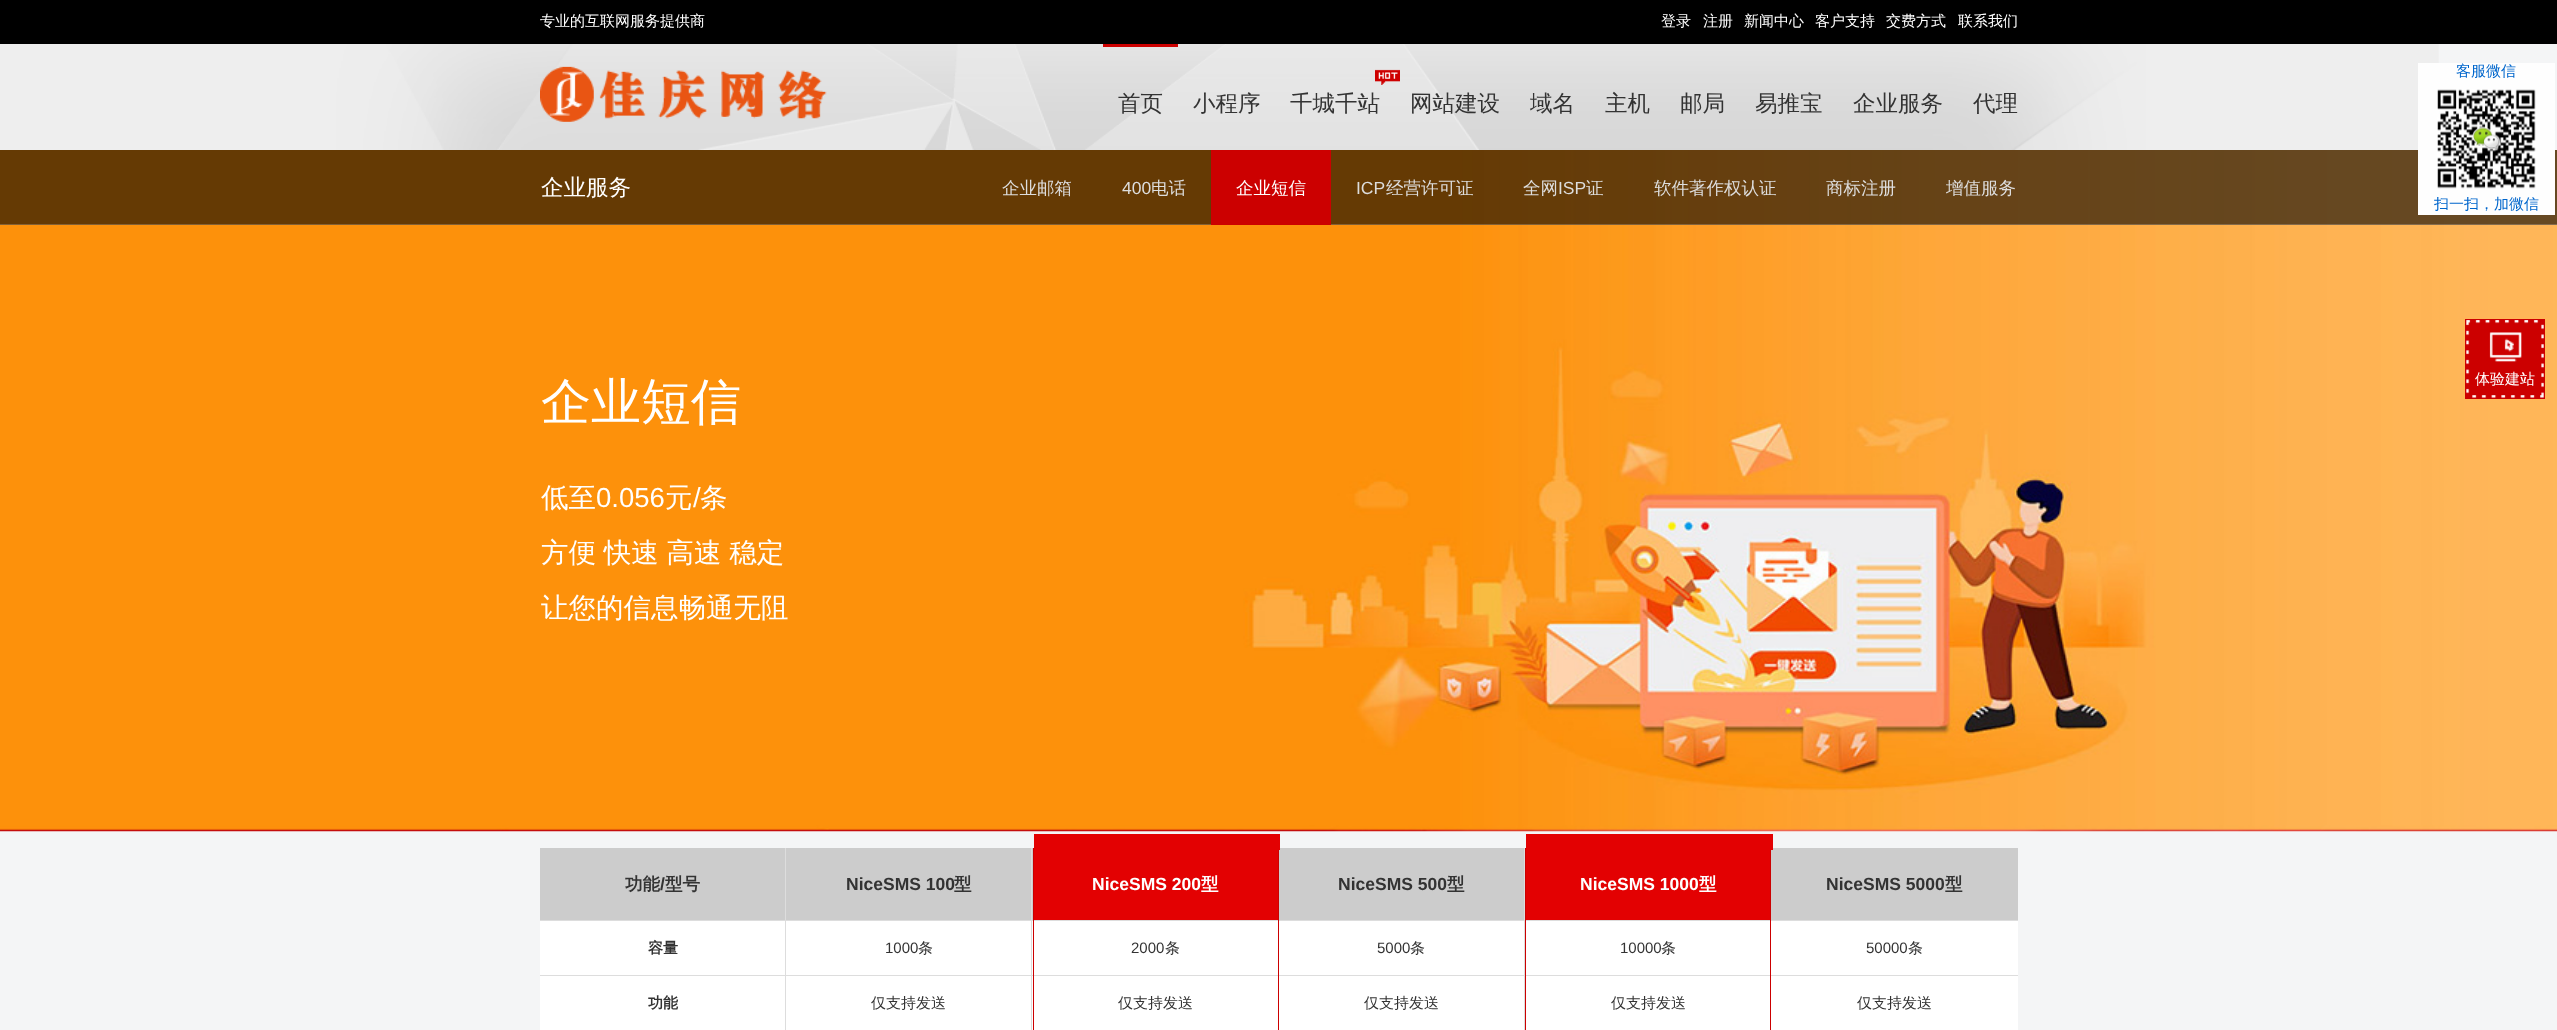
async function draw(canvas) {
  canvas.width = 2557;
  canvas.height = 1030;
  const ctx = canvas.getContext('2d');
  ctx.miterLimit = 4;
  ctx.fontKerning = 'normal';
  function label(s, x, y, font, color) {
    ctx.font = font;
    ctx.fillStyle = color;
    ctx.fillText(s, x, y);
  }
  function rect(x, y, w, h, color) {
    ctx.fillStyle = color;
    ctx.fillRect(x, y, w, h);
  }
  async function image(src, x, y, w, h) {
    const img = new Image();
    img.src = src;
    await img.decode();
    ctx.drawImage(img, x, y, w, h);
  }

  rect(0, 0, 2557, 1030, '#f4f5f6');
  await image('assets/img1.png', 0, 44, 2439, 106);
  rect(0, 0, 2557, 44, '#000');
  label('专业的互联网服务提供商', 540, 26, '500 15px WenQuanYi Zen Hei', '#fff');
  label('登录', 1661, 26, '500 15px WenQuanYi Zen Hei', '#fff');
  label('注册', 1703, 26, '500 15px WenQuanYi Zen Hei', '#fff');
  label('新闻中心', 1744, 26, '500 15px WenQuanYi Zen Hei', '#fff');
  label('客户支持', 1815, 26, '500 15px WenQuanYi Zen Hei', '#fff');
  label('交费方式', 1886, 26, '500 15px WenQuanYi Zen Hei', '#fff');
  label('联系我们', 1958, 26, '500 15px WenQuanYi Zen Hei', '#fff');
  await image('assets/img2.png', 540, 66, 287, 56);
  rect(1103, 44, 75, 3, '#c00');
  label('首页', 1118, 111, '500 22.5px WenQuanYi Zen Hei', '#333');
  label('小程序', 1193, 111, '500 22.5px WenQuanYi Zen Hei', '#333');
  await image('assets/img3.png', 1375, 69, 25, 16);
  label('千城千站', 1290, 111, '500 22.5px WenQuanYi Zen Hei', '#333');
  label('网站建设', 1410, 111, '500 22.5px WenQuanYi Zen Hei', '#333');
  label('域名', 1530, 111, '500 22.5px WenQuanYi Zen Hei', '#333');
  label('主机', 1605, 111, '500 22.5px WenQuanYi Zen Hei', '#333');
  label('邮局', 1680, 111, '500 22.5px WenQuanYi Zen Hei', '#333');
  label('易推宝', 1755, 111, '500 22.5px WenQuanYi Zen Hei', '#333');
  label('企业服务', 1853, 111, '500 22.5px WenQuanYi Zen Hei', '#333');
  label('代理', 1973, 111, '500 22.5px WenQuanYi Zen Hei', '#333');
  await image('assets/img4.png', 0, 150, 2557, 682);
  rect(0, 150, 2557, 75, '#00000099');
  rect(0, 224, 2557, 1, '#ffffff33');
  label('企业服务', 541, 195, '500 22.5px WenQuanYi Zen Hei', '#fff');
  label('企业邮箱', 1002, 194, '500 17.5px WenQuanYi Zen Hei', '#ddd');
  label('400', 1122, 194, '17.5px Liberation Sans', '#ddd');
  label('电话', 1151, 194, '500 17.5px WenQuanYi Zen Hei', '#ddd');
  rect(1211, 150, 120, 75, '#c00');
  label('企业短信', 1236, 194, '500 17.5px WenQuanYi Zen Hei', '#fff');
  label('ICP', 1356, 194, '17.5px Liberation Sans', '#ddd');
  label('经营许可证', 1386, 194, '500 17.5px WenQuanYi Zen Hei', '#ddd');
  label('全网', 1523, 194, '500 17.5px WenQuanYi Zen Hei', '#ddd');
  label('ISP', 1558, 194, '17.5px Liberation Sans', '#ddd');
  label('证', 1586, 194, '500 17.5px WenQuanYi Zen Hei', '#ddd');
  label('软件著作权认证', 1654, 194, '500 17.5px WenQuanYi Zen Hei', '#ddd');
  label('商标注册', 1826, 194, '500 17.5px WenQuanYi Zen Hei', '#ddd');
  label('增值服务', 1946, 194, '500 17.5px WenQuanYi Zen Hei', '#ddd');
  label('企业短信', 541, 419, '500 50px WenQuanYi Zen Hei', '#fff');
  label('低至', 541, 507, '500 27.5px WenQuanYi Zen Hei', '#fff');
  label('0.056', 596, 507, '27.5px Liberation Sans', '#fff');
  label('元', 665, 507, '500 27.5px WenQuanYi Zen Hei', '#fff');
  label('/', 693, 507, '27.5px Liberation Sans', '#fff');
  label('条', 700, 507, '500 27.5px WenQuanYi Zen Hei', '#fff');
  ctx.wordSpacing = '-0.5px';
  label('方便 快速 高速 稳定', 541, 562, '500 27.5px WenQuanYi Zen Hei', '#fff');
  ctx.wordSpacing = '0px';
  label('让您的信息畅通无阻', 541, 617, '500 27.5px WenQuanYi Zen Hei', '#fff');
  rect(540, 848, 1478, 72, '#ccc');
  rect(1278, 848, 1, 72, '#c00');
  rect(1034, 834, 246, 16, '#e30102');
  rect(1770, 848, 1, 72, '#c00');
  rect(1526, 834, 247, 16, '#e30102');
  rect(540, 921, 1478, 109, '#fff');
  rect(785, 848, 1, 72, '#ddd');
  label('功能', 625, 890, 'bold 17.5px WenQuanYi Zen Hei', '#333');
  label('/', 660, 890, 'bold 17.5px Liberation Sans', '#333');
  label('型号', 665, 890, 'bold 17.5px WenQuanYi Zen Hei', '#333');
  rect(1031, 848, 1, 72, '#ddd');
  label('NiceSMS 100', 846, 890, 'bold 17.5px Liberation Sans', '#333');
  label('型', 954, 890, 'bold 17.5px WenQuanYi Zen Hei', '#333');
  rect(1034, 850, 244, 70, '#e30102');
  rect(1033, 848, 1, 72, '#c00');
  label('NiceSMS 200', 1092, 890, 'bold 17.5px Liberation Sans', '#fff');
  label('型', 1201, 890, 'bold 17.5px WenQuanYi Zen Hei', '#fff');
  rect(1524, 848, 1, 72, '#ddd');
  label('NiceSMS 500', 1338, 890, 'bold 17.5px Liberation Sans', '#333');
  label('型', 1447, 890, 'bold 17.5px WenQuanYi Zen Hei', '#333');
  rect(1526, 850, 244, 70, '#e30102');
  rect(1525, 848, 1, 72, '#c00');
  label('NiceSMS 1000', 1580, 890, 'bold 17.5px Liberation Sans', '#fff');
  label('型', 1699, 890, 'bold 17.5px WenQuanYi Zen Hei', '#fff');
  label('NiceSMS 5000', 1826, 890, 'bold 17.5px Liberation Sans', '#333');
  label('型', 1945, 890, 'bold 17.5px WenQuanYi Zen Hei', '#333');
  rect(540, 920, 1478, 1, '#ddd');
  rect(785, 920, 1, 55, '#ddd');
  label('容量', 648, 953, 'bold 15px WenQuanYi Zen Hei', '#333');
  rect(1031, 920, 1, 55, '#ddd');
  label('1000', 885, 953, '15px Liberation Sans', '#333');
  label('条', 918, 953, '500 15px WenQuanYi Zen Hei', '#333');
  rect(1278, 920, 1, 55, '#c00');
  rect(1033, 920, 1, 55, '#c00');
  label('2000', 1131, 953, '15px Liberation Sans', '#333');
  label('条', 1165, 953, '500 15px WenQuanYi Zen Hei', '#333');
  rect(1524, 920, 1, 55, '#ddd');
  label('5000', 1377, 953, '15px Liberation Sans', '#333');
  label('条', 1410, 953, '500 15px WenQuanYi Zen Hei', '#333');
  rect(1770, 920, 1, 55, '#c00');
  rect(1525, 920, 1, 55, '#c00');
  label('10000', 1620, 953, '15px Liberation Sans', '#333');
  label('条', 1661, 953, '500 15px WenQuanYi Zen Hei', '#333');
  label('50000', 1866, 953, '15px Liberation Sans', '#333');
  label('条', 1908, 953, '500 15px WenQuanYi Zen Hei', '#333');
  rect(540, 975, 1478, 1, '#ddd');
  rect(785, 975, 1, 55, '#ddd');
  label('功能', 648, 1008, 'bold 15px WenQuanYi Zen Hei', '#333');
  rect(1031, 975, 1, 55, '#ddd');
  label('仅支持发送', 871, 1008, '500 15px WenQuanYi Zen Hei', '#333');
  rect(1278, 975, 1, 55, '#c00');
  rect(1033, 975, 1, 55, '#c00');
  label('仅支持发送', 1118, 1008, '500 15px WenQuanYi Zen Hei', '#333');
  rect(1524, 975, 1, 55, '#ddd');
  label('仅支持发送', 1364, 1008, '500 15px WenQuanYi Zen Hei', '#333');
  rect(1770, 975, 1, 55, '#c00');
  rect(1525, 975, 1, 55, '#c00');
  label('仅支持发送', 1611, 1008, '500 15px WenQuanYi Zen Hei', '#333');
  label('仅支持发送', 1857, 1008, '500 15px WenQuanYi Zen Hei', '#333');
  rect(2418, 63, 137, 152, '#fefefe');
  label('客服微信', 2456, 76, '500 15px WenQuanYi Zen Hei', '#06c');
  await image('assets/img5.png', 2437, 89, 99, 100);
  label('扫一扫，加微信', 2434, 209, '500 15px WenQuanYi Zen Hei', '#06c');
  rect(2466, 320, 78, 78, '#c00');
  await image('assets/img6.png', 2466, 320, 78, 78);
  ctx.strokeStyle = '#c00';
  ctx.strokeRect(2465.5, 319.5, 79, 79);
  await image('assets/img7.png', 2489, 332, 33, 30);
  label('体验建站', 2475, 384, '500 15px WenQuanYi Zen Hei', '#fff');
}

draw(document.querySelector('canvas'));
